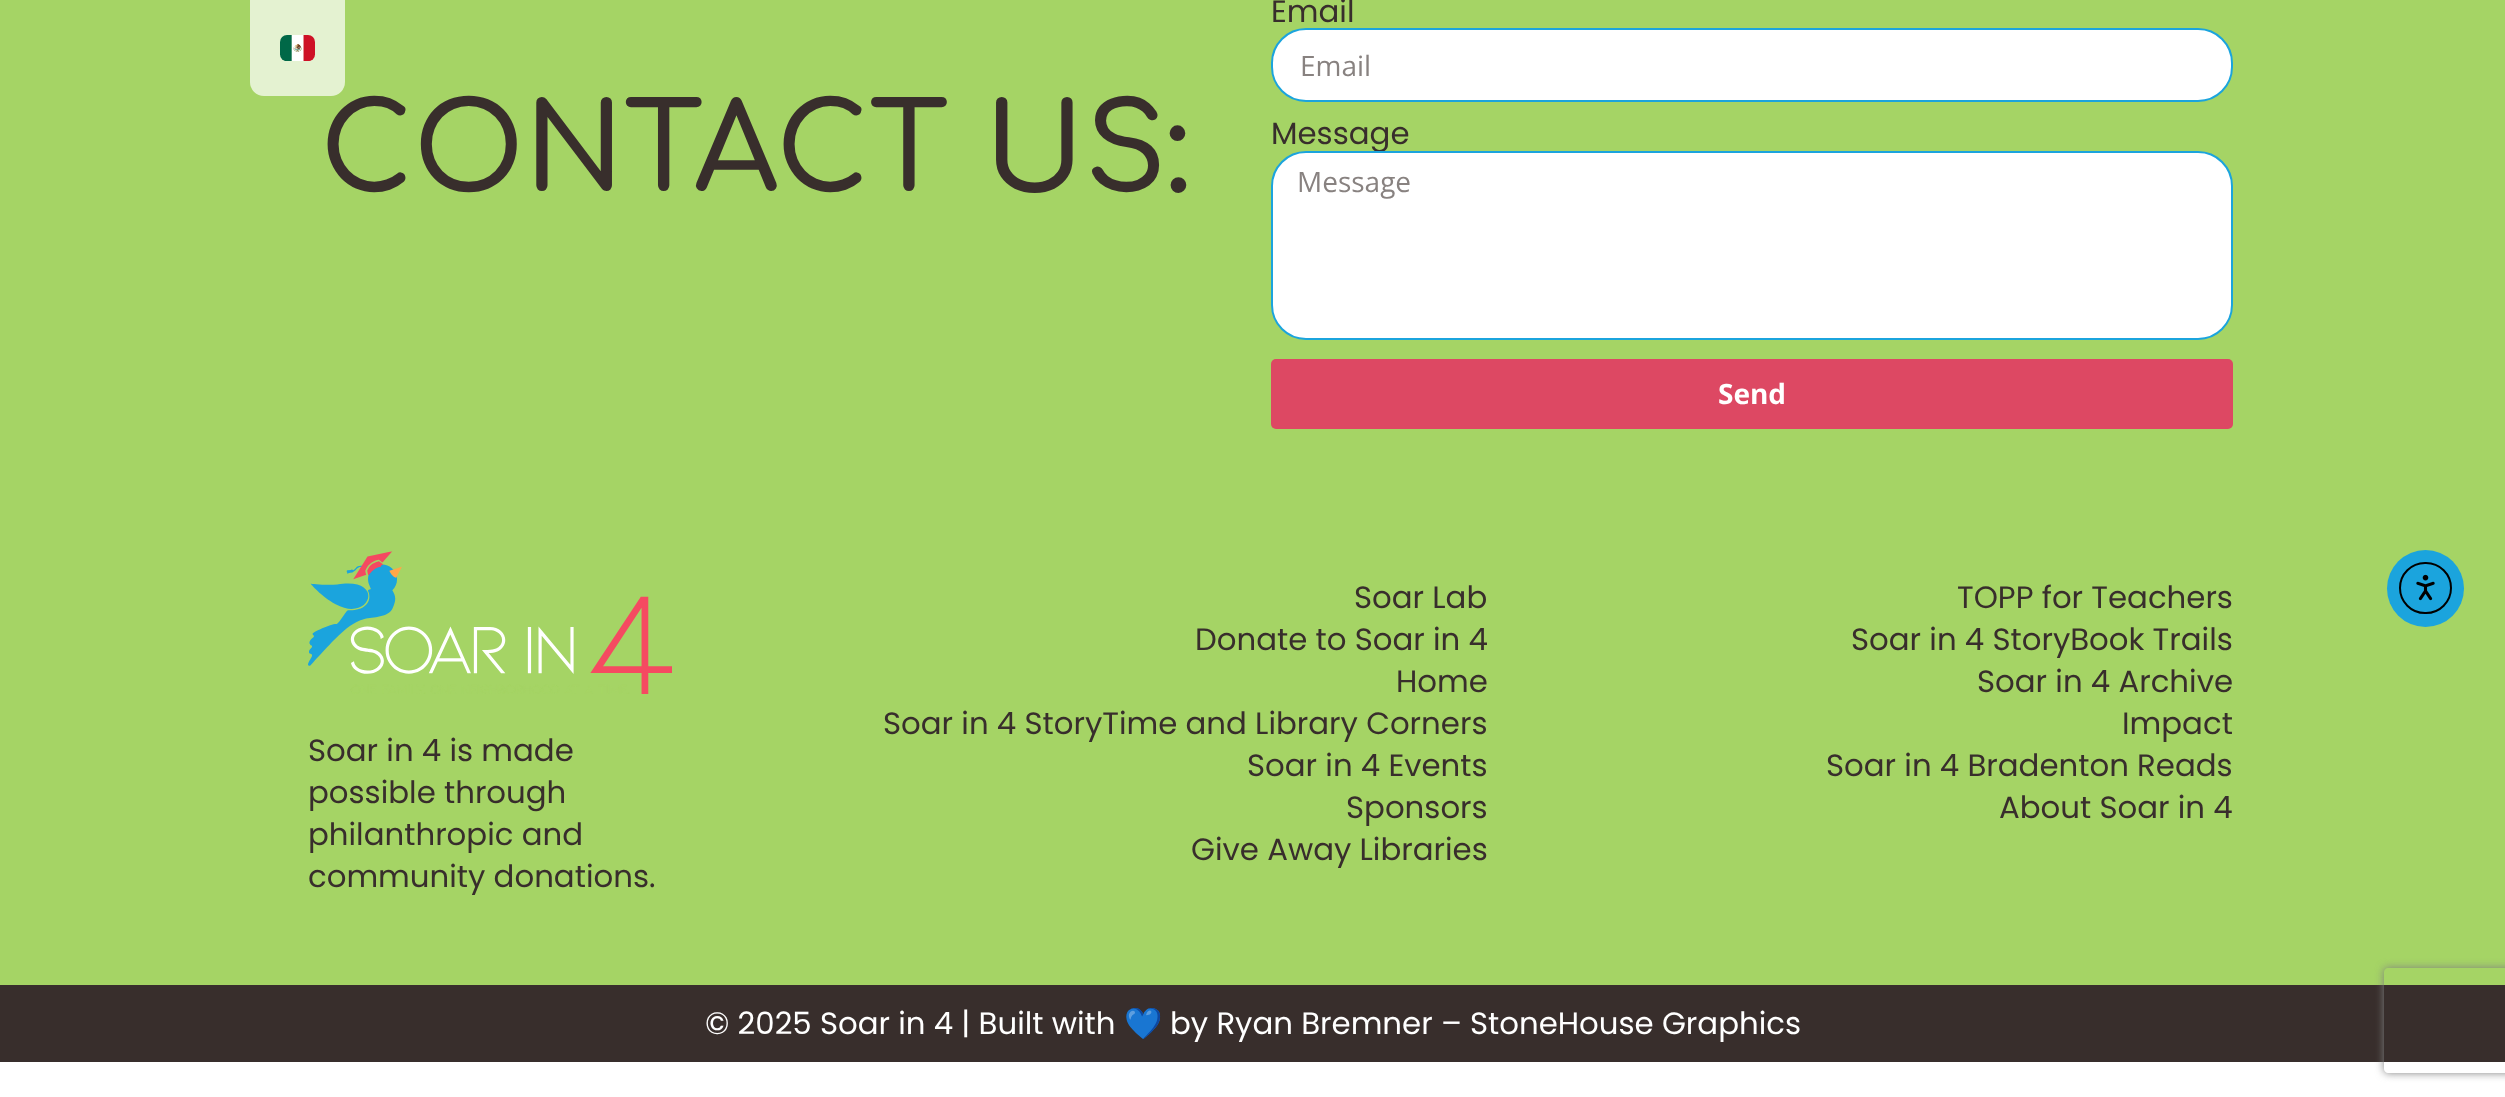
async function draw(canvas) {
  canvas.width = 2505;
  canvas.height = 1097;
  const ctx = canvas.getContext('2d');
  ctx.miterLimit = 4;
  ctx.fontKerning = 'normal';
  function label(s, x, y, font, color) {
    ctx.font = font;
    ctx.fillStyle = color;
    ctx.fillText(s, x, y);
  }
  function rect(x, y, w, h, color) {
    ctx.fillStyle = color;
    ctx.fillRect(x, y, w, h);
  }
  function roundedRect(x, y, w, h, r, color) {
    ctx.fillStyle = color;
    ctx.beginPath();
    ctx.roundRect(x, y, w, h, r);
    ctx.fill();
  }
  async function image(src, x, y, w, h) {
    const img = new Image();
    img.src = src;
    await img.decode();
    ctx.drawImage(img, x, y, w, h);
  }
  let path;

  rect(0, 0, 2505, 1097, '#fff');
  rect(0, 0, 2505, 985, '#a5d465');
  label('CONTACT US:', 320, 191, '600 120.5px Comfortaa', '#382e2c');
  ctx.fillStyle = '#ffffffb3';
  ctx.beginPath();
  ctx.roundRect(250, 0, 95, 96, [0, 0, 14, 14]);
  ctx.fill();
  await image('assets/img1.png', 280, 35, 35, 26);
  label('Email', 1271, 22, '30.8px Poppins', '#382e2c');
  ctx.fillStyle = '#fff';
  ctx.beginPath();
  ctx.roundRect(1272, 29, 960, 72, 34);
  ctx.fill();
  ctx.strokeStyle = '#1ba4dd';
  ctx.lineWidth = 2;
  ctx.stroke();
  label('Email', 1300, 76, '28px Open Sans', '#888280');
  label('Message', 1271, 144, '30.8px Poppins', '#382e2c');
  ctx.fillStyle = '#fff';
  ctx.beginPath();
  ctx.roundRect(1272, 152, 960, 187, 34);
  ctx.fill();
  ctx.stroke();
  label('Message', 1297, 192, '28px Open Sans', '#888280');
  roundedRect(1271, 359, 962, 70, 5, '#dd4863');
  label('Send', 1718, 404, 'bold 28px Open Sans', '#fff');
  rect(0, 985, 2505, 77, '#382e2c');
  ctx.save();
  path = new Path2D('M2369 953H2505V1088H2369ZM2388 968H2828C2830 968 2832 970 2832 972V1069C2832 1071 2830 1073 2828 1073H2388C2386 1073 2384 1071 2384 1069V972C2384 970 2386 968 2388 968Z');
  ctx.clip(path, 'evenodd');
  ctx.fillStyle = '#808080';
  ctx.filter = 'blur(4.5px)';
  ctx.beginPath();
  ctx.roundRect(2384, 968, 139, 105, 4);
  ctx.fill();
  ctx.filter = 'none';
  ctx.restore();
  await image('assets/img2.png', 308, 551, 364, 143);
  label('Soar in 4 is made', 308, 761, '30.8px Poppins', '#382e2c');
  label('possible through', 308, 803, '30.8px Poppins', '#382e2c');
  label('philanthropic and', 308, 845, '30.8px Poppins', '#382e2c');
  label('community donations.', 308, 887, '30.8px Poppins', '#382e2c');
  label('Soar Lab', 1354, 608, '30.8px Poppins', '#382e2c');
  label('TOPP for Teachers', 1957, 608, '30.8px Poppins', '#382e2c');
  label('Donate to Soar in 4', 1195, 650, '30.8px Poppins', '#382e2c');
  label('Soar in 4 StoryBook Trails', 1851, 650, '30.8px Poppins', '#382e2c');
  label('Home', 1396, 692, '30.8px Poppins', '#382e2c');
  label('Soar in 4 Archive', 1977, 692, '30.8px Poppins', '#382e2c');
  label('Soar in 4 StoryTime and Library Corners', 883, 734, '30.8px Poppins', '#382e2c');
  label('Impact', 2122, 734, '30.8px Poppins', '#382e2c');
  label('Soar in 4 Events', 1247, 776, '30.8px Poppins', '#382e2c');
  label('Soar in 4 Bradenton Reads', 1826, 776, '30.8px Poppins', '#382e2c');
  label('Sponsors', 1346, 818, '30.8px Poppins', '#382e2c');
  label('About Soar in 4', 1999, 818, '30.8px Poppins', '#382e2c');
  label('Give Away Libraries', 1191, 860, '30.8px Poppins', '#382e2c');
  label('© 2025 Soar in 4 | Built with', 705, 1034, '30.8px Poppins', '#fff');
  label('💙', 1124, 1034, '30.8px Noto Color Emoji', '#fff');
  label('by Ryan Bremner – StoneHouse Graphics', 1170, 1034, '30.8px Poppins', '#fff');
  ctx.fillStyle = '#1ba4dd';
  ctx.beginPath();
  ctx.arc(2425.5, 588.5, 38.5, 0, 2 * Math.PI);
  ctx.fill();
  ctx.beginPath();
  ctx.roundRect(2400, 563, 51, 50, 25);
  ctx.strokeStyle = '#000';
  ctx.stroke();
  await image('assets/img3.png', 2416, 574, 19, 27);
}

draw(document.querySelector('canvas'));
